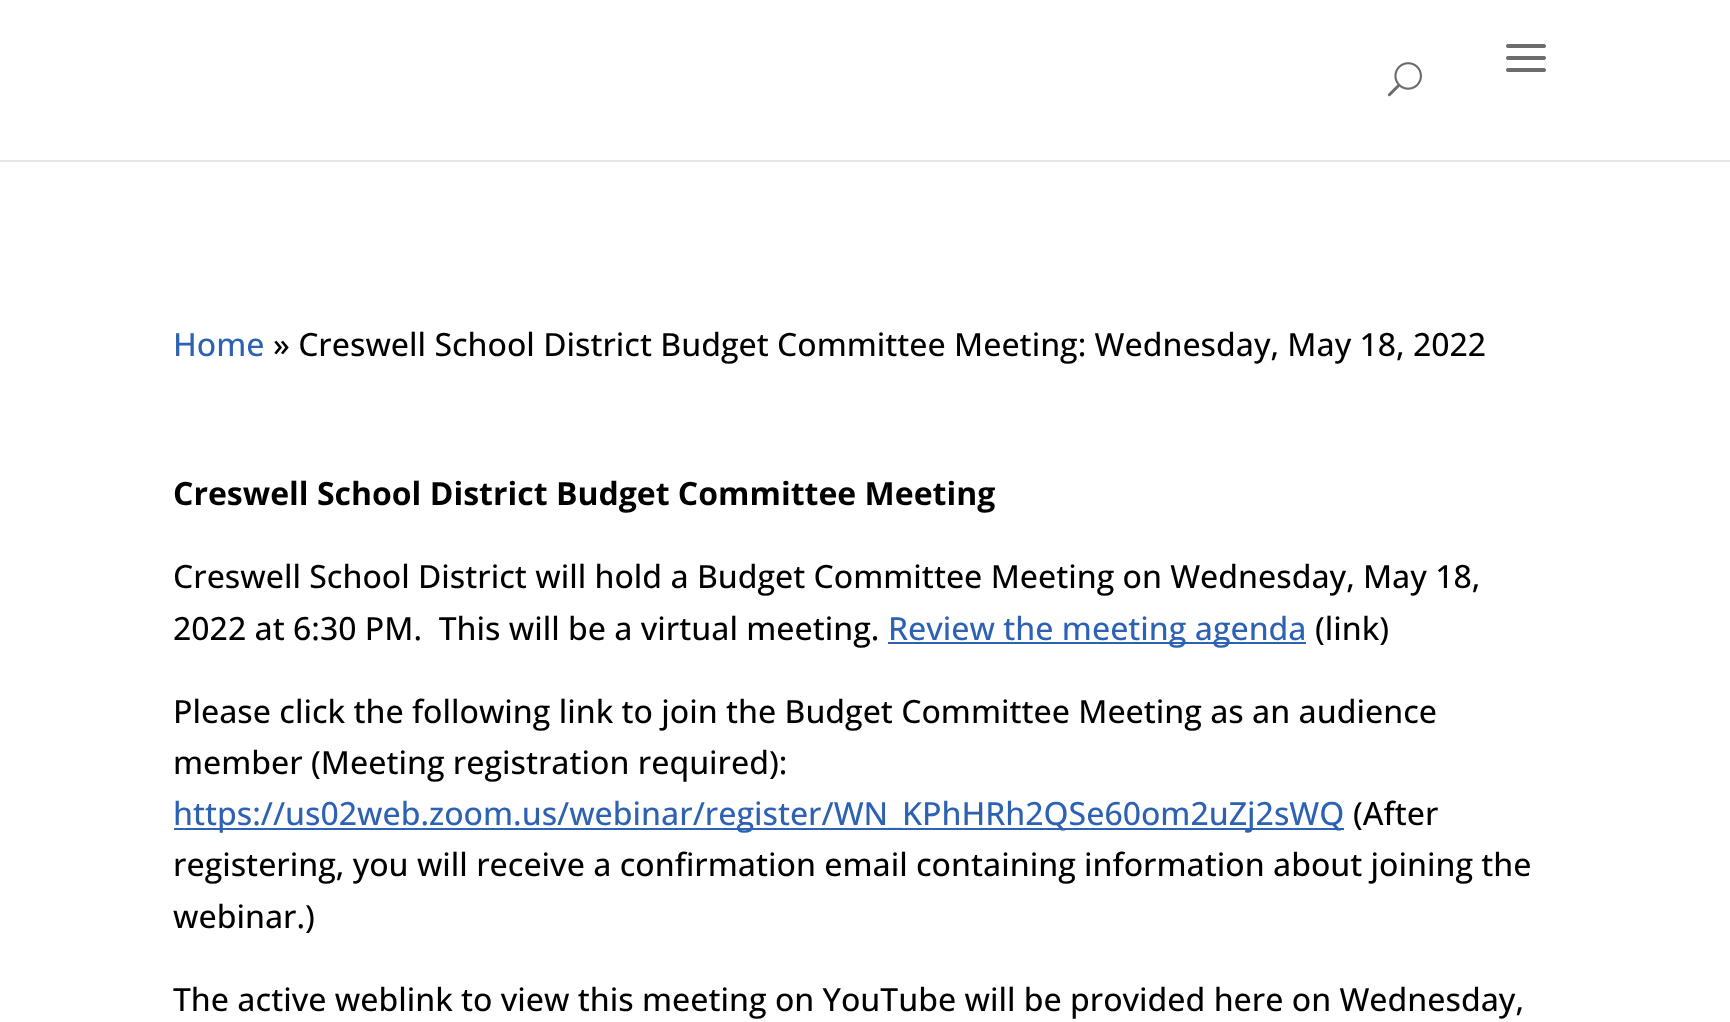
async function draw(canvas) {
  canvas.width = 1730;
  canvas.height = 1022;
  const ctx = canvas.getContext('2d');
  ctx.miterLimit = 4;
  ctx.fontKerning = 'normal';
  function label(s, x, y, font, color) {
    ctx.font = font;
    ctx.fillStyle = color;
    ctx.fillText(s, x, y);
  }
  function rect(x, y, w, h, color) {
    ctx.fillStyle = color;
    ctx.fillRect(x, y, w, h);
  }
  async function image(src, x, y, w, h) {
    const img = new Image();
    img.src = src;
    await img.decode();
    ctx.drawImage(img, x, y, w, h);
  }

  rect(0, 0, 1730, 1022, '#fff');
  rect(0, 160, 1730, 2, '#e6e6e6');
  await image('assets/img1.png', 1506, 44, 40, 28);
  await image('assets/img2.png', 1387, 62, 35, 35);
  label('Home', 173, 356, '500 32px Open Sans', '#2c61b3');
  label('» Creswell School District Budget Committee Meeting: Wednesday, May 18, 2022', 273, 356, '500 32px Open Sans', '#000');
  label('Creswell School District Budget Committee Meeting', 173, 505, 'bold 32px Open Sans', '#000');
  label('Creswell School District will hold a Budget Committee Meeting on Wednesday, May 18,', 173, 588, '500 32px Open Sans', '#000');
  label('2022 at 6:30 PM.  This will be a virtual meeting.', 173, 640, '500 32px Open Sans', '#000');
  rect(888, 642, 418, 2, '#2c61b3');
  label('Review the meeting agenda', 888, 640, '500 32px Open Sans', '#2c61b3');
  label('(link)', 1315, 640, '500 32px Open Sans', '#000');
  label('Please click the following link to join the Budget Committee Meeting as an audience', 173, 723, '500 32px Open Sans', '#000');
  label('member (Meeting registration required):', 173, 774, '500 32px Open Sans', '#000');
  rect(174, 828, 1170, 2, '#2c61b3');
  label('https://us02web.zoom.us/webinar/register/WN_KPhHRh2QSe60om2uZj2sWQ', 173, 825, '500 32px Open Sans', '#2c61b3');
  label('(After', 1353, 825, '500 32px Open Sans', '#000');
  label('registering, you will receive a confirmation email containing information about joining the', 173, 876, '500 32px Open Sans', '#000');
  label('webinar.)', 173, 928, '500 32px Open Sans', '#000');
  label('The active weblink to view this meeting on YouTube will be provided here on Wednesday,', 173, 1011, '500 32px Open Sans', '#000');
}

draw(document.querySelector('canvas'));
